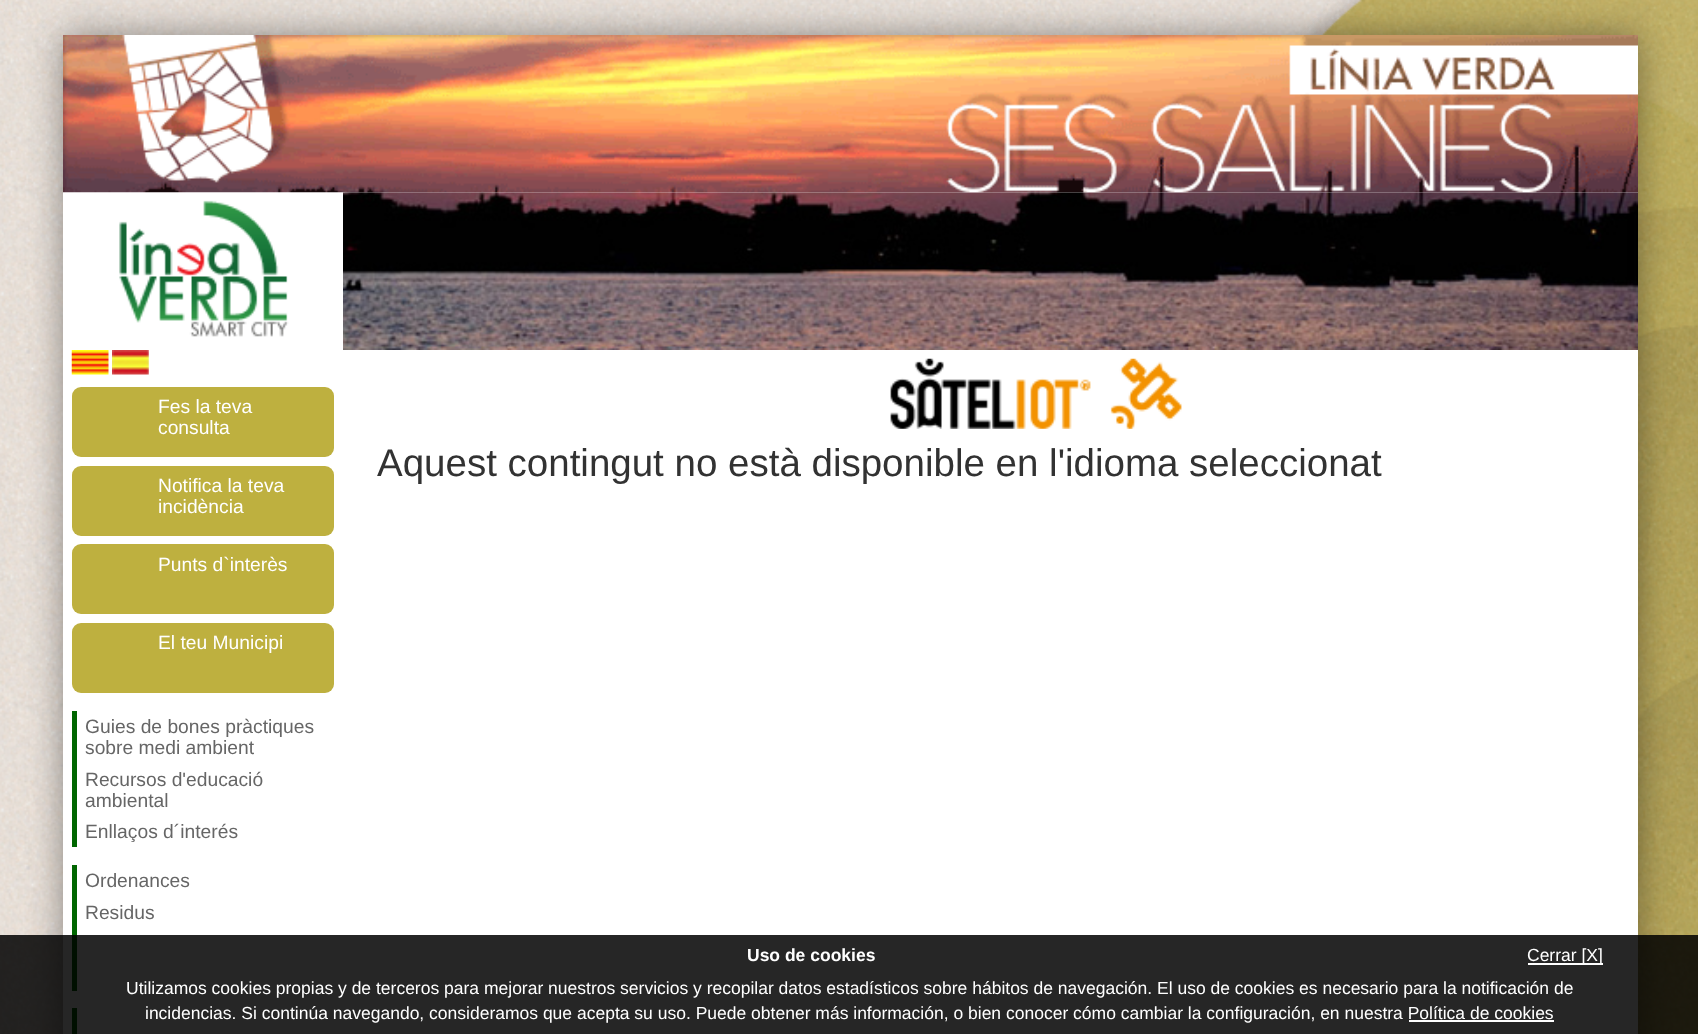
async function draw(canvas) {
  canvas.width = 1698;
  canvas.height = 1034;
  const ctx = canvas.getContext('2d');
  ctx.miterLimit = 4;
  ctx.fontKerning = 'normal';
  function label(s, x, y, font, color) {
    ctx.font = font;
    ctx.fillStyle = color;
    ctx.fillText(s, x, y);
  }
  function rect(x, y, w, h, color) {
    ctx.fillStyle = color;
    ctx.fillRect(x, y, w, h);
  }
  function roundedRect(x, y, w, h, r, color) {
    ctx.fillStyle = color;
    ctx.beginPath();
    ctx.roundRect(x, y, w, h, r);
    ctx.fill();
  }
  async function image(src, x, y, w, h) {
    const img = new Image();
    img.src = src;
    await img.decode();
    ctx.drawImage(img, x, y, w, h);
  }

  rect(0, 0, 1698, 1034, '#fff');
  await image('assets/img1.png', 0, 0, 1698, 1034);
  ctx.fillStyle = '#00000066';
  ctx.filter = 'blur(17.5px)';
  ctx.beginPath();
  ctx.rect(63, 35, 1575, 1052);
  ctx.fill();
  ctx.filter = 'none';
  rect(63, 192, 1575, 842, '#fff');
  await image('assets/img2.png', 63, 35, 1575, 158);
  await image('assets/img3.png', 63, 192, 282, 145);
  await image('assets/img4.png', 343, 192, 1295, 158);
  await image('assets/img5.png', 890, 358, 292, 71);
  await image('assets/img6.png', 71, 350, 38, 25);
  await image('assets/img7.png', 112, 350, 37, 25);
  roundedRect(72, 387, 262, 70, 9, '#beb03f');
  label('Fes la teva', 158, 413, '19.25px Liberation Sans', '#fff');
  label('consulta', 158, 434, '19.25px Liberation Sans', '#fff');
  roundedRect(72, 466, 262, 70, 9, '#beb03f');
  label('Notifica la teva', 158, 492, '19.25px Liberation Sans', '#fff');
  label('incidència', 158, 513, '19.25px Liberation Sans', '#fff');
  roundedRect(72, 544, 262, 70, 9, '#beb03f');
  label('Punts d`interès', 158, 571, '19.25px Liberation Sans', '#fff');
  roundedRect(72, 623, 262, 70, 9, '#beb03f');
  label('El teu Municipi', 158, 649, '19.25px Liberation Sans', '#fff');
  rect(72, 711, 5, 136, '#060');
  label('Guies de bones pràctiques', 85, 733, '19.25px Liberation Sans', '#666');
  label('sobre medi ambient', 85, 754, '19.25px Liberation Sans', '#666');
  label('Recursos d\'educació', 85, 786, '19.25px Liberation Sans', '#666');
  label('ambiental', 85, 807, '19.25px Liberation Sans', '#666');
  label('Enllaços d´interés', 85, 838, '19.25px Liberation Sans', '#666');
  rect(72, 865, 5, 126, '#060');
  label('Ordenances', 85, 887, '19.25px Liberation Sans', '#666');
  label('Residus', 85, 919, '19.25px Liberation Sans', '#666');
  rect(72, 1008, 5, 26, '#060');
  label('Aquest contingut no està disponible en l\'idioma seleccionat', 377, 476, '38.5px Liberation Sans', '#323232');
  rect(0, 935, 1698, 99, '#000000d9');
  label('Uso de cookies', 747, 961, 'bold 17.5px Liberation Sans', '#fff');
  rect(1528, 963, 75, 2, '#fff');
  label('Cerrar [X]', 1527, 961, '17.5px Liberation Sans', '#fff');
  label('Utilizamos cookies propias y de terceros para mejorar nuestros servicios y recopilar datos estadísticos sobre hábitos de navegación. El uso de cookies es necesario para la notificación de', 126, 994, '17.5px Liberation Sans', '#fff');
  label('incidencias. Si continúa navegando, consideramos que acepta su uso. Puede obtener más información, o bien conocer cómo cambiar la configuración, en nuestra Política de cookies', 145, 1019, '17.5px Liberation Sans', '#fff');
  rect(1409, 1020, 145, 2, '#fff');
}

draw(document.querySelector('canvas'));
